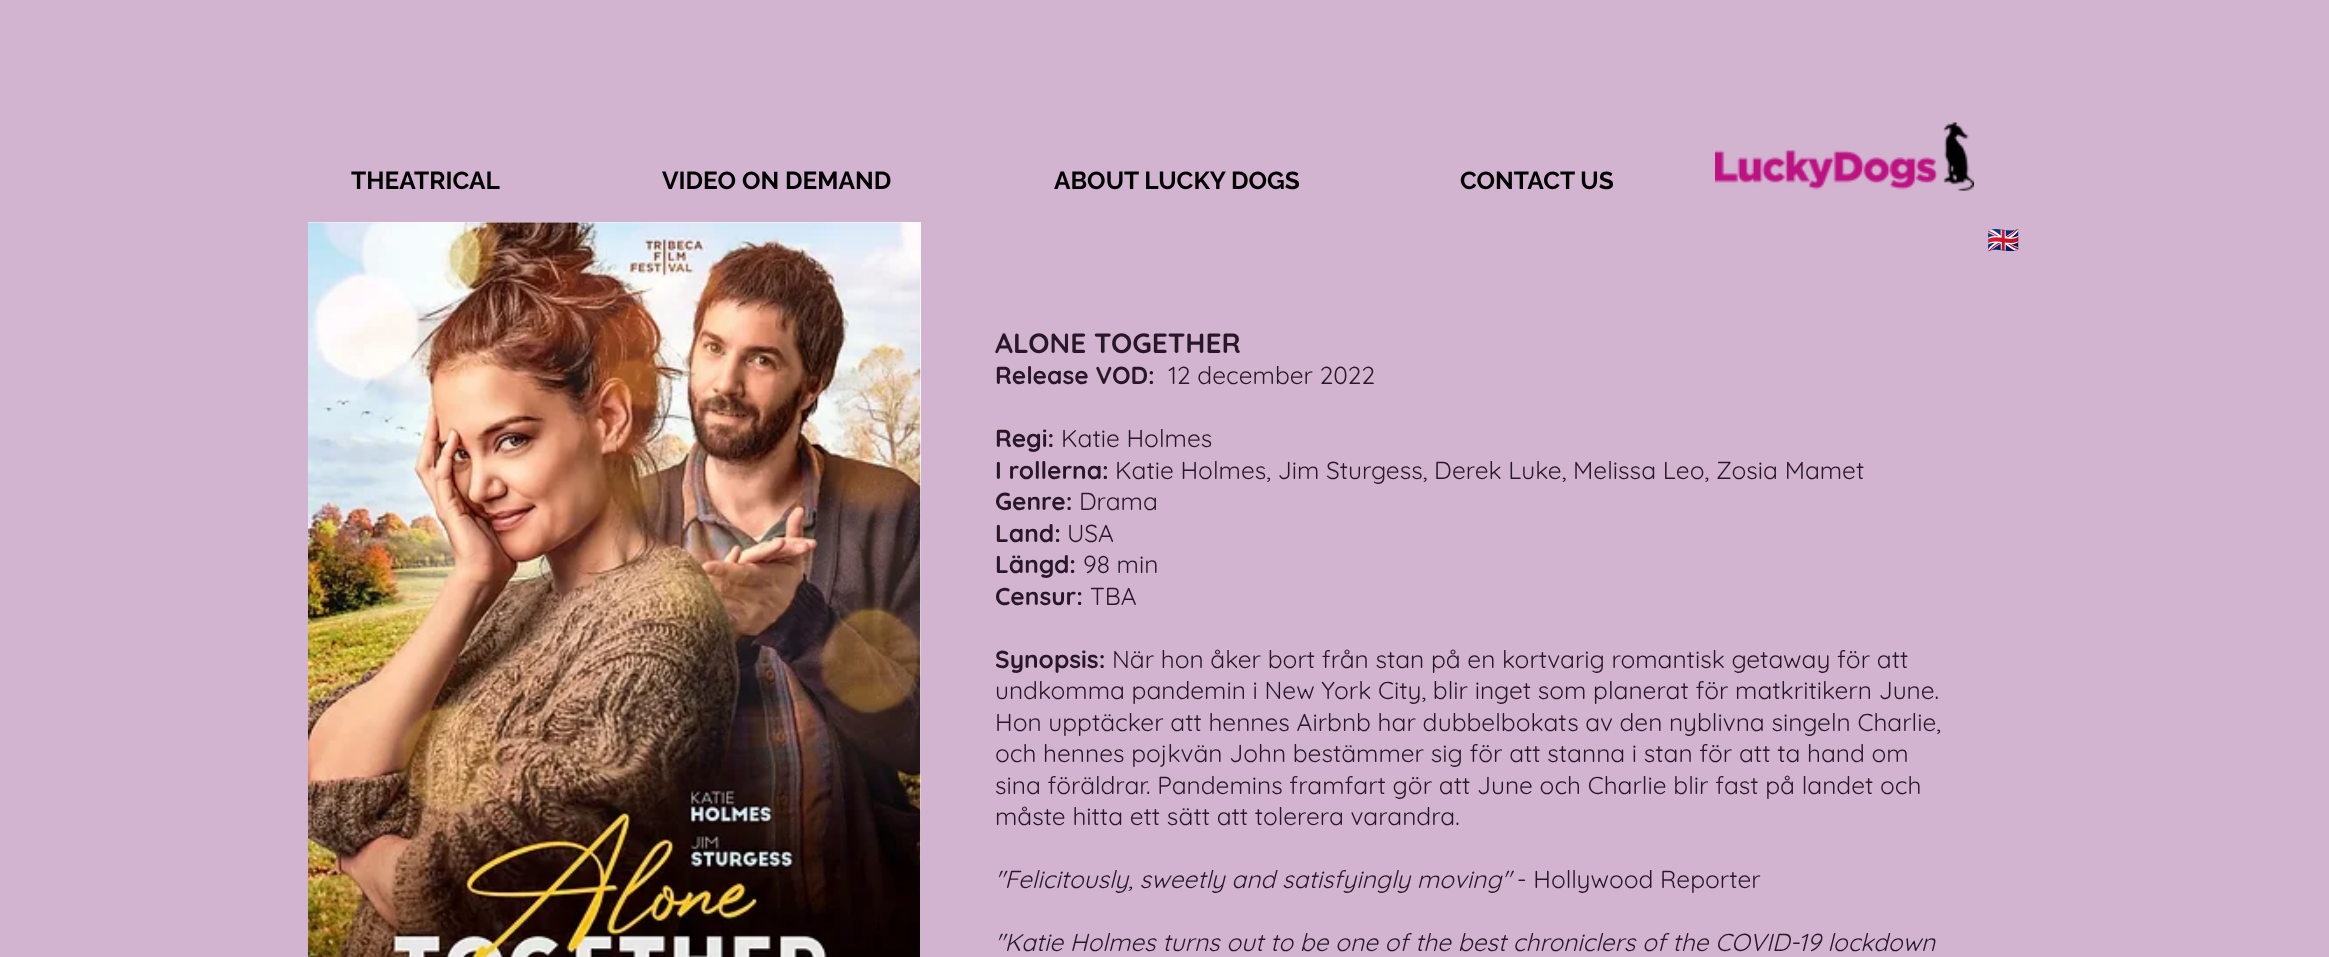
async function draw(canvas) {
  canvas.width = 2329;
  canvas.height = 957;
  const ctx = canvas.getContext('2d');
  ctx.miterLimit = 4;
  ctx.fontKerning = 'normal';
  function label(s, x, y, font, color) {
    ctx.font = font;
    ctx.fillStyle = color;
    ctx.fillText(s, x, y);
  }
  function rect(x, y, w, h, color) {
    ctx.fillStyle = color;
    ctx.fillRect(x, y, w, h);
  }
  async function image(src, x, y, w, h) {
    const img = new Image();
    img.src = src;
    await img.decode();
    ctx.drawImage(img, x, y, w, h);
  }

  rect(0, 0, 2329, 957, '#d2b4d1');
  label('THEATRICAL', 351, 189, 'bold 24.5px Raleway', '#000');
  label('VIDEO ON DEMAND', 662, 189, 'bold 24.5px Raleway', '#000');
  label('ABOUT LUCKY DOGS', 1054, 189, 'bold 24.5px Raleway', '#000');
  label('CONTACT US', 1460, 189, 'bold 24.5px Raleway', '#000');
  await image('assets/img1.png', 1715, 122, 259, 69);
  rect(308, 222, 613, 735, '#fff');
  await image('assets/img2.png', 308, 222, 613, 735);
  label('🇬🇧', 1987, 249, 'bold 26px Noto Color Emoji', '#a0197d');
  label('ALONE TOGETHER', 995, 353, 'bold 28px Quicksand', '#281728');
  label('Release VOD:', 995, 384, 'bold 24.5px Quicksand', '#281728');
  label('12 december 2022', 1168, 384, '24.5px Quicksand', '#281728');
  label('Regi:', 995, 447, 'bold 24.5px Quicksand', '#281728');
  label('Katie Holmes', 1061, 447, '24.5px Quicksand', '#281728');
  label('I rollerna:', 995, 479, 'bold 24.5px Quicksand', '#281728');
  label('Katie Holmes, Jim Sturgess, Derek Luke, Melissa Leo, Zosia Mamet', 1115, 479, '24.5px Quicksand', '#281728');
  label('Genre:', 995, 510, 'bold 24.5px Quicksand', '#281728');
  label('Drama', 1079, 510, '24.5px Quicksand', '#281728');
  label('Land:', 995, 542, 'bold 24.5px Quicksand', '#281728');
  label('USA', 1067, 542, '24.5px Quicksand', '#281728');
  label('Längd:', 995, 573, 'bold 24.5px Quicksand', '#281728');
  label('98 min', 1083, 573, '24.5px Quicksand', '#281728');
  label('Censur:', 995, 605, 'bold 24.5px Quicksand', '#281728');
  label('TBA', 1090, 605, '24.5px Quicksand', '#281728');
  label('Synopsis:', 995, 668, 'bold 24.5px Quicksand', '#281728');
  label('När hon åker bort från stan på en kortvarig romantisk getaway för att', 1112, 668, '24.5px Quicksand', '#281728');
  label('undkomma pandemin i New York City, blir inget som planerat för matkritikern June.', 995, 699, '24.5px Quicksand', '#281728');
  label('Hon upptäcker att hennes Airbnb har dubbelbokats av den nyblivna singeln Charlie,', 995, 731, '24.5px Quicksand', '#281728');
  label('och hennes pojkvän John bestämmer sig för att stanna i stan för att ta hand om', 995, 762, '24.5px Quicksand', '#281728');
  label('sina föräldrar. Pandemins framfart gör att June och Charlie blir fast på landet och', 995, 794, '24.5px Quicksand', '#281728');
  label('måste hitta ett sätt att tolerera varandra.', 995, 825, '24.5px Quicksand', '#281728');
  label('"Felicitously, sweetly and satisfyingly moving"', 995, 888, 'italic 24.5px Quicksand', '#281728');
  label('- Hollywood Reporter', 1517, 888, '24.5px Quicksand', '#281728');
  label('"Katie Holmes turns out to be one of the best chroniclers of the COVID-19 lockdown', 995, 951, 'italic 24.5px Quicksand', '#281728');
}

draw(document.querySelector('canvas'));
